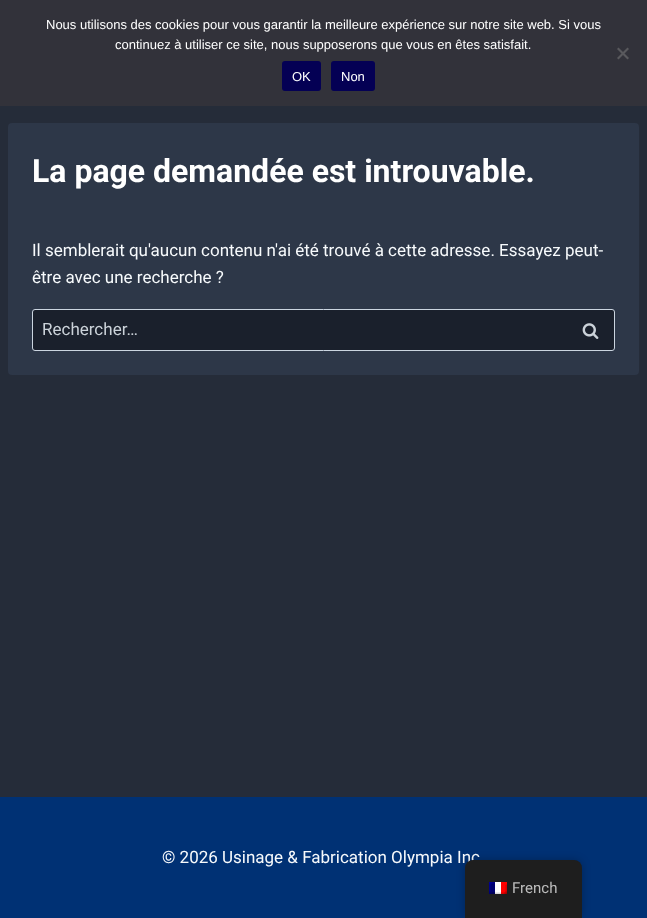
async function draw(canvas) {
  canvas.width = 647;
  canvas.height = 918;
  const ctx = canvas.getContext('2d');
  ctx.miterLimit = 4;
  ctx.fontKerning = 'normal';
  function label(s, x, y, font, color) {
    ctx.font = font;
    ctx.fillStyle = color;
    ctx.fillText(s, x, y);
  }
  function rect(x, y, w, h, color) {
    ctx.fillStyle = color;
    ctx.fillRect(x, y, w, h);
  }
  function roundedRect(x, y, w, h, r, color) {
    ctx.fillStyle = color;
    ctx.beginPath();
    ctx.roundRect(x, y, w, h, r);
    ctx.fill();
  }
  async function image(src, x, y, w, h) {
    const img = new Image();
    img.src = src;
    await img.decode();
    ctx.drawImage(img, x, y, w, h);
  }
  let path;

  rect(0, 0, 647, 918, '#252c39');
  rect(0, 0, 647, 106, '#32323a');
  label('Nous utilisons des cookies pour vous garantir la meilleure expérience sur notre site web. Si vous', 46, 29, '13px Liberation Sans', '#fff');
  label('continuez à utiliser ce site, nous supposerons que vous en êtes satisfait.', 115, 49, '13px Liberation Sans', '#fff');
  ctx.fillStyle = '#59595d';
  path = new Path2D('M627.5 47.5L629 49L618.5 59.5L617 58Z');
  ctx.fill(path);
  path = new Path2D('M617 49L618.5 47.5L629 58L627.5 59.5Z');
  ctx.fill(path);
  roundedRect(282, 61, 39, 30, 3, '#040054');
  label('OK', 292, 81, '13px Liberation Sans', '#fff');
  roundedRect(331, 61, 44, 30, 3, '#040054');
  label('Non', 341, 81, '13px Liberation Sans', '#fff');
  roundedRect(8, 123, 631, 252, 4, '#2d3748');
  label('La page demandée est introuvable.', 32, 182, 'bold 32px Roboto', '#fff');
  label('Il semblerait qu\'aucun contenu n\'ai été trouvé à cette adresse. Essayez peut-', 32, 256, '17px Roboto', '#f7fafc');
  label('être avec une recherche ?', 32, 283, '17px Roboto', '#f7fafc');
  ctx.fillStyle = '#1a202c';
  ctx.beginPath();
  ctx.roundRect(32.5, 309.5, 582, 41, 2.5);
  ctx.fill();
  ctx.strokeStyle = '#cbd5e0';
  ctx.stroke();
  label('Rechercher…', 42, 335, '17px Roboto', '#cbd2d9');
  await image('assets/img1.png', 582, 323, 17, 16);
  rect(0, 797, 647, 121, '#003174');
  label('© 2026 Usinage & Fabrication Olympia Inc', 162, 863, '17px Roboto', '#f7fafc');
  ctx.fillStyle = '#00000040';
  ctx.filter = 'blur(4px)';
  ctx.beginPath();
  ctx.roundRect(465, 860, 117, 58, 8);
  ctx.fill();
  ctx.filter = 'none';
  ctx.fillStyle = '#1e1e1e';
  ctx.beginPath();
  ctx.roundRect(465, 860, 117, 58, [8, 8, 0, 0]);
  ctx.fill();
  await image('assets/img2.png', 489, 882, 18, 12);
  label('French', 512, 893, '15px Roboto', '#bdbdbd');
}

draw(document.querySelector('canvas'));
